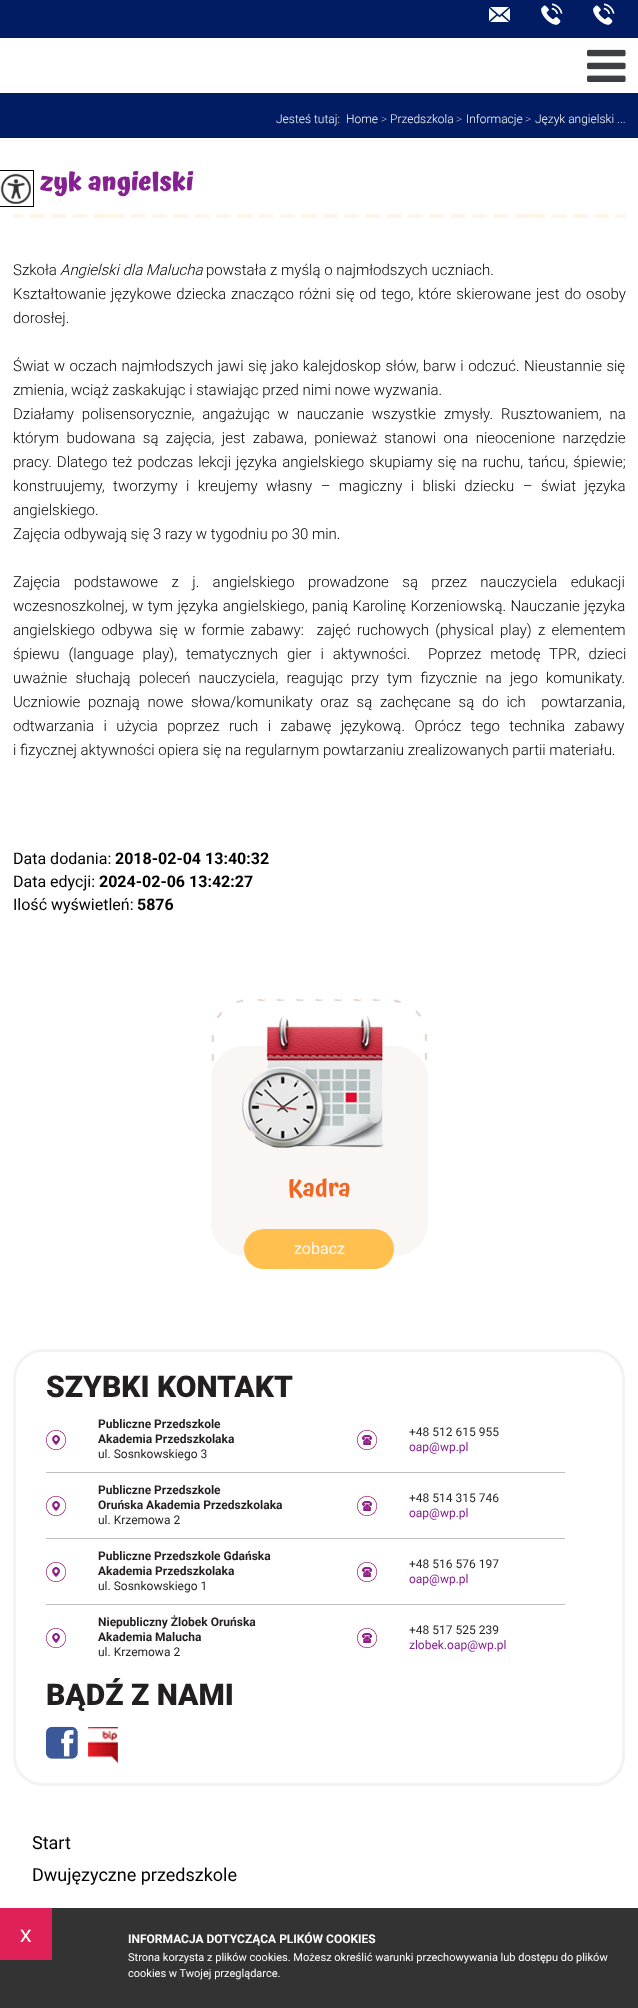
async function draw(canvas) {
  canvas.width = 638;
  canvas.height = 2008;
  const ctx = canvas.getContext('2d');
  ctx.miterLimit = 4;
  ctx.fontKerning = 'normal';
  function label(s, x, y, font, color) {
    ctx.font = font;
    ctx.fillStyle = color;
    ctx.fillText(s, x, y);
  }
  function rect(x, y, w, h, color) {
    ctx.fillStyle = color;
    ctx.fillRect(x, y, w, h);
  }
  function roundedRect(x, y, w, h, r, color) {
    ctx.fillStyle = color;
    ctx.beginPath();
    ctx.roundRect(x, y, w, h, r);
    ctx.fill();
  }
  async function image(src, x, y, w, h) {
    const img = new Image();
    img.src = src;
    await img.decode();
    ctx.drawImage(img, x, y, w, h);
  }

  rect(0, 0, 638, 2008, '#fff');
  rect(0, 0, 638, 38, '#011c62');
  await image('assets/img1.png', 489, 7, 21, 15);
  await image('assets/img2.png', 541, 3, 22, 22);
  await image('assets/img2.png', 593, 3, 22, 22);
  await image('assets/img3.png', 587, 49, 39, 33);
  rect(0, 93, 638, 45, '#011c62');
  label('Jesteś tutaj:', 276, 123, '300 12px Roboto', '#fff');
  label('Home', 346, 123, '300 12px Roboto', '#fff');
  label('>', 381, 123, '100 12px Roboto', '#fff');
  label('Przedszkola', 390, 123, '300 12px Roboto', '#fff');
  label('>', 456, 123, '100 12px Roboto', '#fff');
  label('Informacje', 466, 123, '300 12px Roboto', '#fff');
  label('>', 525, 123, '100 12px Roboto', '#fff');
  label('Język angielski ...', 535, 123, '300 12px Roboto', '#fff');
  ctx.strokeStyle = '#000';
  ctx.strokeRect(-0.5, 170.5, 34, 36);
  await image('assets/img4.png', 0, 173, 31, 31);
  await image('assets/img5.png', 13, 214, 612, 4);
  label('zyk angielski', 40, 190, 'bold 25px Atma', '#862191');
  label('Szkoła', 13, 275, '300 15px Roboto', '#000');
  label('Angielski dla Malucha', 60, 275, 'italic 300 15px Roboto', '#000');
  label('powstała z myślą o najmłodszych uczniach.', 206, 275, '300 15px Roboto', '#000');
  ctx.wordSpacing = '1.25px';
  label('Kształtowanie językowe dziecka znacząco różni się od tego, które skierowane jest do osoby', 13, 299, '300 15px Roboto', '#000');
  ctx.wordSpacing = '0px';
  label('dorosłej.', 13, 323, '300 15px Roboto', '#000');
  ctx.wordSpacing = '0.75px';
  label('Świat w oczach najmłodszych jawi się jako kalejdoskop słów, barw i odczuć. Nieustannie się', 13, 371, '300 15px Roboto', '#000');
  ctx.wordSpacing = '0px';
  label('zmienia, wciąż zaskakując i stawiając przed nimi nowe wyzwania.', 13, 395, '300 15px Roboto', '#000');
  ctx.wordSpacing = '4.25px';
  label('Działamy polisensorycznie, angażując w nauczanie wszystkie zmysły. Rusztowaniem, na', 13, 419, '300 15px Roboto', '#000');
  ctx.wordSpacing = '3.75px';
  label('którym budowana są zajęcia, jest zabawa, ponieważ stanowi ona nieocenione narzędzie', 13, 443, '300 15px Roboto', '#000');
  ctx.wordSpacing = '1.4px';
  label('pracy. Dlatego też podczas lekcji języka angielskiego skupiamy się na ruchu, tańcu, śpiewie;', 13, 467, '300 15px Roboto', '#000');
  ctx.wordSpacing = '4.75px';
  label('konstruujemy, tworzymy i kreujemy własny – magiczny i bliski dziecku – świat języka', 13, 491, '300 15px Roboto', '#000');
  ctx.wordSpacing = '0px';
  label('angielskiego.', 13, 515, '300 15px Roboto', '#000');
  label('Zajęcia odbywają się 3 razy w tygodniu po 30 min.', 13, 539, '300 15px Roboto', '#000');
  ctx.wordSpacing = '9.75px';
  label('Zajęcia podstawowe z j. angielskiego prowadzone są przez nauczyciela edukacji', 13, 587, '300 15px Roboto', '#000');
  ctx.wordSpacing = '0.75px';
  label('wczesnoszkolnej, w tym języka angielskiego, panią Karolinę Korzeniowską. Nauczanie języka', 13, 611, '300 15px Roboto', '#000');
  ctx.wordSpacing = '2.6px';
  label('angielskiego odbywa się w formie zabawy:  zajęć ruchowych (physical play) z elementem', 13, 635, '300 15px Roboto', '#000');
  ctx.wordSpacing = '5.25px';
  label('śpiewu (language play), tematycznych gier i aktywności.  Poprzez metodę TPR, dzieci', 13, 659, '300 15px Roboto', '#000');
  ctx.wordSpacing = '4.5px';
  label('uważnie słuchają poleceń nauczyciela, reagując przy tym fizycznie na jego komunikaty.', 13, 683, '300 15px Roboto', '#000');
  ctx.wordSpacing = '4.1px';
  label('Uczniowie poznają nowe słowa/komunikaty oraz są zachęcane są do ich  powtarzania,', 13, 707, '300 15px Roboto', '#000');
  ctx.wordSpacing = '5.75px';
  label('odtwarzania i użycia poprzez ruch i zabawę językową. Oprócz tego technika zabawy', 13, 731, '300 15px Roboto', '#000');
  ctx.wordSpacing = '0px';
  label('i fizycznej aktywności opiera się na regularnym powtarzaniu zrealizowanych partii materiału.', 13, 755, '300 15px Roboto', '#000');
  label('Data dodania:', 13, 864, '16px Roboto', '#000');
  label('2018-02-04 13:40:32', 115, 864, 'bold 16px Roboto', '#000');
  label('Data edycji:', 13, 887, '16px Roboto', '#000');
  label('2024-02-06 13:42:27', 99, 887, 'bold 16px Roboto', '#000');
  label('Ilość wyświetleń:', 13, 910, '16px Roboto', '#000');
  label('5876', 137, 910, 'bold 16px Roboto', '#000');
  await image('assets/img6.png', 211, 999, 217, 257);
  await image('assets/img7.png', 242, 1015, 142, 133);
  label('Kadra', 288, 1196, '600 24px Atma', '#f26622');
  roundedRect(244, 1229, 150, 40, 20, '#ffc04f');
  label('zobacz', 294, 1254, '16px Roboto', '#faf6f3');
  ctx.beginPath();
  ctx.roundRect(14.5, 1350.5, 609, 434, 28.5);
  ctx.strokeStyle = '#f2f3f3';
  ctx.lineWidth = 3;
  ctx.stroke();
  label('SZYBKI KONTAKT', 46, 1397, '900 30px Roboto', '#231f20');
  rect(46, 1472, 519, 1, '#bfbfbf');
  await image('assets/img8.png', 46, 1430, 20, 20);
  label('Publiczne Przedszkole', 98, 1428, 'bold 12px Roboto', '#231f20');
  label('Akademia Przedszkolaka', 98, 1443, 'bold 12px Roboto', '#231f20');
  label('ul. Sosnkowskiego 3', 98, 1458, '12px Roboto', '#231f20');
  await image('assets/img9.png', 357, 1430, 20, 20);
  label('+48 512 615 955', 409, 1436, '12px Roboto', '#231f20');
  label('oap@wp.pl', 409, 1451, '12px Roboto', '#862191');
  rect(46, 1538, 519, 1, '#bfbfbf');
  await image('assets/img8.png', 46, 1496, 20, 20);
  label('Publiczne Przedszkole', 98, 1494, 'bold 12px Roboto', '#231f20');
  label('Oruńska Akademia Przedszkolaka', 98, 1509, 'bold 12px Roboto', '#231f20');
  label('ul. Krzemowa 2', 98, 1524, '12px Roboto', '#231f20');
  await image('assets/img9.png', 357, 1496, 20, 20);
  label('+48 514 315 746', 409, 1502, '12px Roboto', '#231f20');
  label('oap@wp.pl', 409, 1517, '12px Roboto', '#862191');
  rect(46, 1604, 519, 1, '#bfbfbf');
  await image('assets/img8.png', 46, 1562, 20, 20);
  label('Publiczne Przedszkole Gdańska', 98, 1560, 'bold 12px Roboto', '#231f20');
  label('Akademia Przedszkolaka', 98, 1575, 'bold 12px Roboto', '#231f20');
  label('ul. Sosnkowskiego 1', 98, 1590, '12px Roboto', '#231f20');
  await image('assets/img9.png', 357, 1562, 20, 20);
  label('+48 516 576 197', 409, 1568, '12px Roboto', '#231f20');
  label('oap@wp.pl', 409, 1583, '12px Roboto', '#862191');
  await image('assets/img8.png', 46, 1628, 20, 20);
  label('Niepubliczny Żlobek Oruńska', 98, 1626, 'bold 12px Roboto', '#231f20');
  label('Akademia Malucha', 98, 1641, 'bold 12px Roboto', '#231f20');
  label('ul. Krzemowa 2', 98, 1656, '12px Roboto', '#231f20');
  await image('assets/img9.png', 357, 1628, 20, 20);
  label('+48 517 525 239', 409, 1634, '12px Roboto', '#231f20');
  label('zlobek.oap@wp.pl', 409, 1649, '12px Roboto', '#862191');
  label('BĄDŹ Z NAMI', 46, 1705, '900 30px Roboto', '#231f20');
  await image('assets/img10.png', 46, 1726, 32, 33);
  await image('assets/img11.png', 88, 1727, 30, 36);
  label('Start', 32, 1849, '18px Roboto', '#000');
  label('Dwujęzyczne przedszkole', 32, 1881, '18px Roboto', '#000');
  rect(0, 1908, 638, 100, '#000000cc');
  rect(0, 1908, 52, 52, '#df2157');
  label('x', 20, 1942, '23px Liberation Sans', '#fff');
  label('INFORMACJA DOTYCZĄCA PLIKÓW COOKIES', 128, 1943, 'bold 12px Roboto', '#fff');
  label('Strona korzysta z plików cookies. Możesz określić warunki przechowywania lub dostępu do plików', 128, 1961, '11px Roboto', '#fff');
  label('cookies w Twojej przeglądarce.', 128, 1977, '11px Roboto', '#fff');
}

draw(document.querySelector('canvas'));
